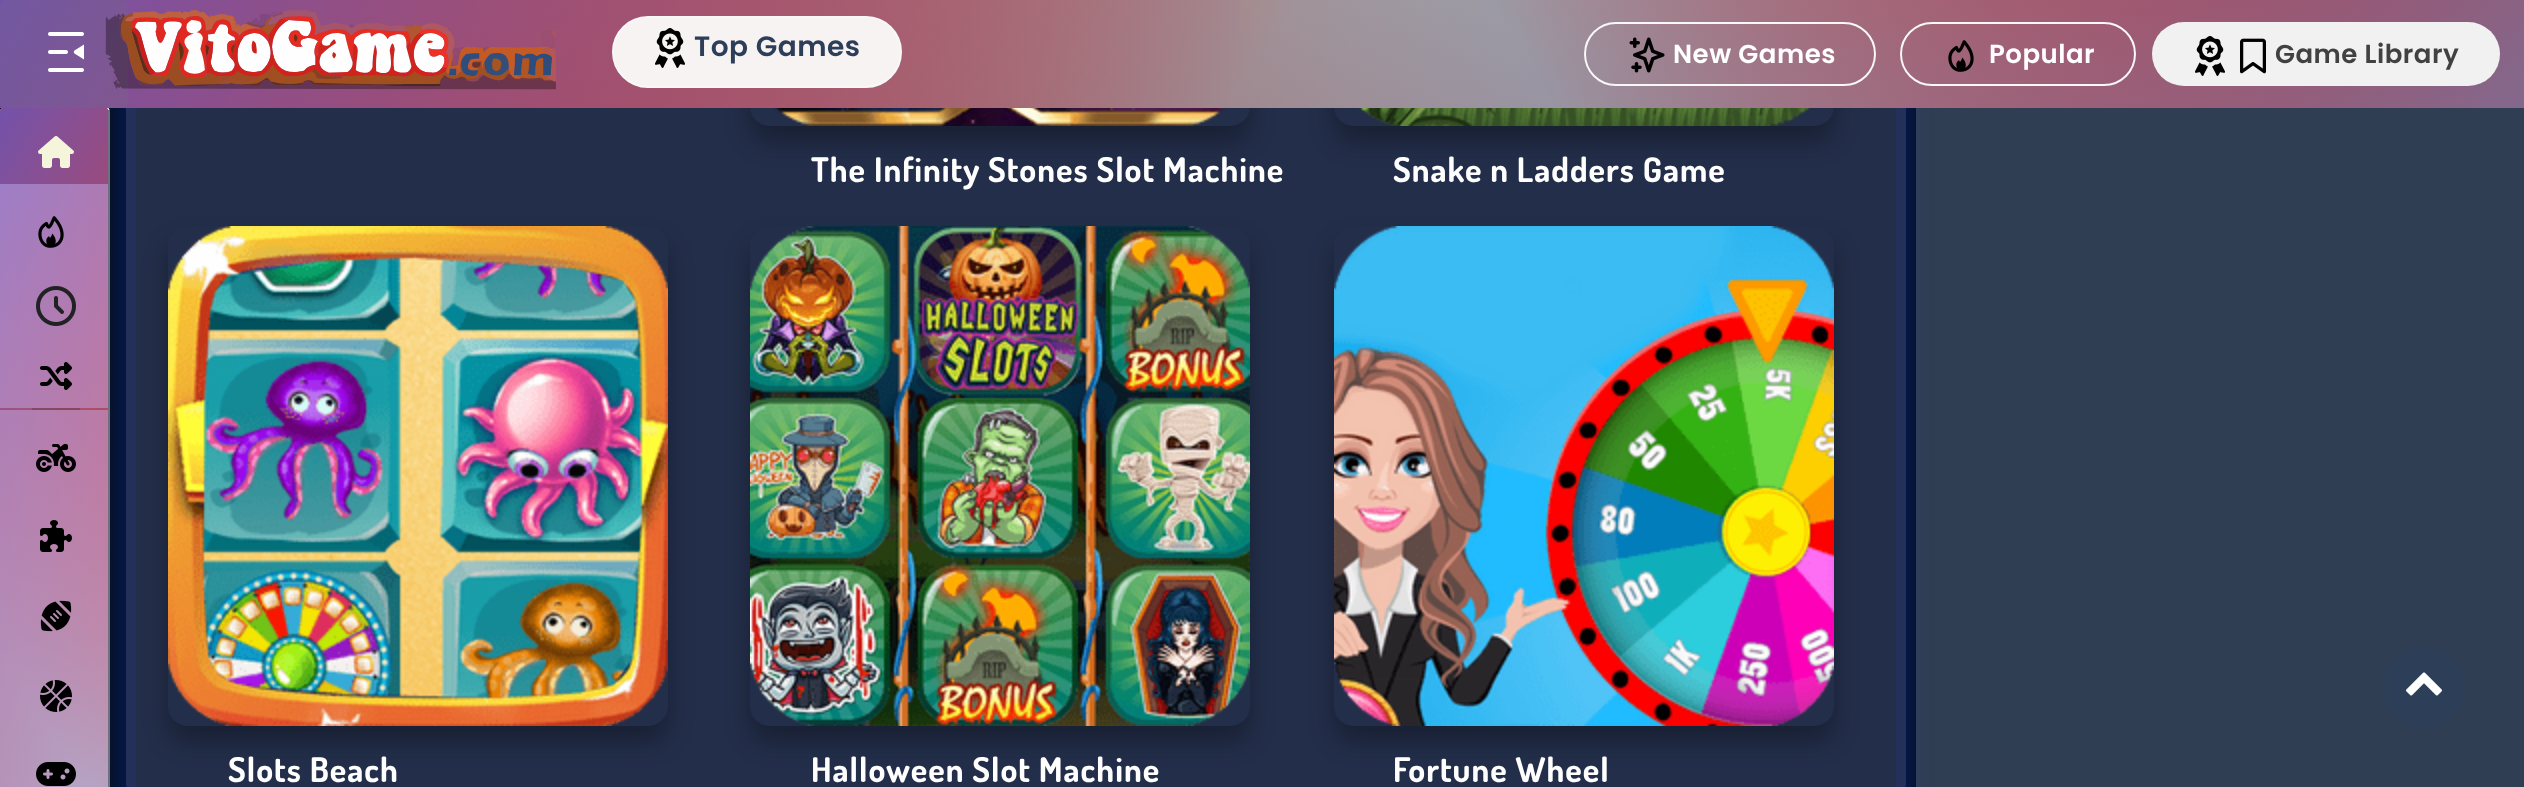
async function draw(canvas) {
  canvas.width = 2524;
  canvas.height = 787;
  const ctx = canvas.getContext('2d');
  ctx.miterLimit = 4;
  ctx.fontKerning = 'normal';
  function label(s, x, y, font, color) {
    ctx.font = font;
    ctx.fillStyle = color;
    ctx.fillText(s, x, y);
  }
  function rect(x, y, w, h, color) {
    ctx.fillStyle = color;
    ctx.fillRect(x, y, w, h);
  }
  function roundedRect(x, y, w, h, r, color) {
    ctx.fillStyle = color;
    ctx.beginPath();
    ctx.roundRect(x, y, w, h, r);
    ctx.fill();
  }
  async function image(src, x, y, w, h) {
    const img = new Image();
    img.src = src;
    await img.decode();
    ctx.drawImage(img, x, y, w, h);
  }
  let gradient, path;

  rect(0, 0, 2524, 787, '#05122b');
  ctx.fillStyle = '#061d62';
  ctx.filter = 'blur(12px)';
  ctx.beginPath();
  ctx.roundRect(126, -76, 1780, 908, 40);
  ctx.fill();
  ctx.filter = 'none';
  roundedRect(0, 106, 110, 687, 6, '#f7f7f7');
  ctx.fillStyle = '#a2252d';
  path = new Path2D('M6 106C3 106 0 109 0 112V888C0 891 3 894 6 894H104C106 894 108 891 108 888V112C108 109 106 106 104 106Z');
  ctx.fill(path);
  gradient = ctx.createLinearGradient(454, 698, -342, 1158);
  gradient.addColorStop(0, '#ef0000');
  gradient.addColorStop(0.4, '#a0a3a9');
  gradient.addColorStop(1, '#a0a3a900');
  ctx.fillStyle = gradient;
  path = new Path2D('M6 106C3 106 0 109 0 112V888C0 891 3 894 6 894H104C106 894 108 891 108 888V112C108 109 106 106 104 106Z');
  ctx.fill(path);
  gradient = ctx.createLinearGradient(490, 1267, -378, 589);
  gradient.addColorStop(0, '#83698d');
  gradient.addColorStop(0.5, '#83698d00');
  gradient.addColorStop(0.5, '#ff460b00');
  gradient.addColorStop(1, '#ff460b');
  ctx.fillStyle = gradient;
  path = new Path2D('M6 106C3 106 0 109 0 112V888C0 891 3 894 6 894H104C106 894 108 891 108 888V112C108 109 106 106 104 106Z');
  ctx.fill(path);
  gradient = ctx.createLinearGradient(454, 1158, -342, 698);
  gradient.addColorStop(0, '#05122b00');
  gradient.addColorStop(0.5, '#7352ab00');
  gradient.addColorStop(1, '#7352ab');
  ctx.fillStyle = gradient;
  path = new Path2D('M6 106C3 106 0 109 0 112V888C0 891 3 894 6 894H104C106 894 108 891 108 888V112C108 109 106 106 104 106Z');
  ctx.fill(path);
  ctx.fillStyle = '#232e4a';
  ctx.beginPath();
  ctx.roundRect(131, -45, 1770, 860, 35);
  ctx.fill();
  ctx.strokeStyle = '#23315a';
  ctx.lineWidth = 10;
  ctx.stroke();
  ctx.save();
  path = new Path2D('M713 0H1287V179H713ZM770-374H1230C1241-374 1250-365 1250-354V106C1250 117 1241 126 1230 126H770C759 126 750 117 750 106V-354C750-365 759-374 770-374Z');
  ctx.clip(path, 'evenodd');
  ctx.fillStyle = '#0000004d';
  ctx.filter = 'blur(12px)';
  ctx.beginPath();
  ctx.roundRect(750, -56, 500, 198, 20);
  ctx.fill();
  ctx.filter = 'none';
  ctx.restore();
  ctx.save();
  path = new Path2D('M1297 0H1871V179H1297ZM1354-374H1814C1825-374 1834-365 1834-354V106C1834 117 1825 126 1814 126H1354C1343 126 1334 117 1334 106V-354C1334-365 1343-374 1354-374Z');
  ctx.clip(path, 'evenodd');
  ctx.fillStyle = '#0000004d';
  ctx.filter = 'blur(12px)';
  ctx.beginPath();
  ctx.roundRect(1334, -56, 500, 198, 20);
  ctx.fill();
  ctx.filter = 'none';
  ctx.restore();
  gradient = ctx.createLinearGradient(2232, -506, 292, 614);
  gradient.addColorStop(0, '#ef0000');
  gradient.addColorStop(0.4, '#a0a3a9');
  gradient.addColorStop(1, '#a2252d');
  ctx.fillStyle = gradient;
  ctx.fillRect(0, 0, 2524, 108);
  gradient = ctx.createLinearGradient(2072, 687, 452, -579);
  gradient.addColorStop(0, '#83698d');
  gradient.addColorStop(0.5, '#83698d00');
  gradient.addColorStop(0.5, '#ff460b00');
  gradient.addColorStop(1, '#ff460b');
  ctx.fillStyle = gradient;
  ctx.fillRect(0, 0, 2524, 108);
  gradient = ctx.createLinearGradient(2232, 614, 292, -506);
  gradient.addColorStop(0, '#05122b00');
  gradient.addColorStop(0.5, '#7352ab00');
  gradient.addColorStop(1, '#7352ab');
  ctx.fillStyle = gradient;
  ctx.fillRect(0, 0, 1240, 108);
  roundedRect(0, 0, 128, 108, 6, '#6c757d33');
  await image('assets/img1.png', 48, 32, 36, 40);
  await image('assets/img2.png', 105, 10, 451, 80);
  ctx.fillStyle = '#f7f3f3';
  ctx.beginPath();
  ctx.roundRect(613, 17, 288, 70, 35);
  ctx.fill();
  ctx.strokeStyle = '#f8f8f8';
  ctx.lineWidth = 2;
  ctx.stroke();
  await image('assets/img3.png', 655, 28, 30, 40);
  ctx.letterSpacing = '0.5px';
  label('Top Games', 694, 56, '600 28px Poppins', '#2d3e58');
  ctx.beginPath();
  ctx.roundRect(1585, 23, 290, 62, 31);
  ctx.stroke();
  await image('assets/img4.png', 1629, 37, 36, 36);
  label('New Games', 1673, 63, '600 26px Poppins', '#fff');
  ctx.beginPath();
  ctx.roundRect(1901, 23, 234, 62, 31);
  ctx.stroke();
  await image('assets/img5.png', 1948, 40, 26, 32);
  label('Popular', 1989, 63, '600 26px Poppins', '#fff');
  roundedRect(2152, 22, 348, 64, 32, '#f1f1f1');
  await image('assets/img6.png', 2195, 36, 30, 40);
  await image('assets/img7.png', 2240, 38, 26, 36);
  label('Game Library', 2275, 63, '600 26px Poppins', '#414141');
  rect(108, 110, 2, 677, '#28293da6');
  await image('assets/img8.png', 38, 136, 36, 32);
  rect(0, 184, 108, 74, '#cabdff6b');
  await image('assets/img9.png', 38, 216, 26, 32);
  rect(0, 258, 108, 72, '#cabdff6b');
  await image('assets/img10.png', 36, 286, 40, 40);
  rect(0, 330, 108, 78, '#cabdff6b');
  await image('assets/img11.png', 40, 362, 32, 28);
  rect(32, 408, 48, 2, '#24191940');
  rect(32, 408, 48, 2, '#ffffff08');
  rect(0, 410, 108, 80, '#cabdff6b');
  await image('assets/img12.png', 36, 444, 40, 28);
  rect(0, 490, 108, 78, '#cabdff6b');
  await image('assets/img13.png', 40, 520, 32, 32);
  rect(0, 568, 108, 80, '#cabdff6b');
  await image('assets/img14.png', 40, 600, 32, 32);
  rect(0, 648, 108, 80, '#cabdff6b');
  await image('assets/img15.png', 40, 680, 32, 32);
  rect(0, 728, 108, 59, '#cabdff6b');
  await image('assets/img16.png', 36, 762, 40, 24);
  await image('assets/img17.png', 773, 108, 454, 18);
  ctx.letterSpacing = '1px';
  label('The Infinity Stones Slot Machine', 811, 182, 'bold 34px Dosis', '#fff');
  await image('assets/img18.png', 1357, 108, 454, 18);
  label('Snake n Ladders Game', 1393, 182, 'bold 34px Dosis', '#fff');
  ctx.save();
  path = new Path2D('M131 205H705V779H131ZM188 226H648C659 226 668 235 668 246V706C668 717 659 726 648 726H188C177 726 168 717 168 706V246C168 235 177 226 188 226Z');
  ctx.clip(path, 'evenodd');
  ctx.fillStyle = '#0000004d';
  ctx.filter = 'blur(12px)';
  ctx.beginPath();
  ctx.roundRect(168, 242, 500, 500, 20);
  ctx.fill();
  ctx.filter = 'none';
  ctx.restore();
  await image('assets/img19.png', 168, 226, 500, 500);
  label('Slots Beach', 228, 782, 'bold 34px Dosis', '#fff');
  ctx.save();
  path = new Path2D('M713 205H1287V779H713ZM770 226H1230C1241 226 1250 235 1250 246V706C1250 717 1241 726 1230 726H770C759 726 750 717 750 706V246C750 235 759 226 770 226Z');
  ctx.clip(path, 'evenodd');
  ctx.fillStyle = '#0000004d';
  ctx.filter = 'blur(12px)';
  ctx.beginPath();
  ctx.roundRect(750, 242, 500, 500, 20);
  ctx.fill();
  ctx.filter = 'none';
  ctx.restore();
  await image('assets/img20.png', 750, 226, 500, 500);
  label('Halloween Slot Machine', 811, 782, 'bold 34px Dosis', '#fff');
  ctx.save();
  path = new Path2D('M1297 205H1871V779H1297ZM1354 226H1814C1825 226 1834 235 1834 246V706C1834 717 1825 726 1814 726H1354C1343 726 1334 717 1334 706V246C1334 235 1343 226 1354 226Z');
  ctx.clip(path, 'evenodd');
  ctx.fillStyle = '#0000004d';
  ctx.filter = 'blur(12px)';
  ctx.beginPath();
  ctx.roundRect(1334, 242, 500, 500, 20);
  ctx.fill();
  ctx.filter = 'none';
  ctx.restore();
  await image('assets/img21.png', 1334, 226, 500, 500);
  label('Fortune Wheel', 1393, 782, 'bold 34px Dosis', '#fff');
  rect(1916, 108, 608, 679, '#cee2eb36');
  ctx.fillStyle = '#2d3e58';
  ctx.beginPath();
  ctx.arc(2424, 688, 40, 0, 2 * Math.PI);
  ctx.fill();
  await image('assets/img22.png', 2406, 672, 36, 24);
}

draw(document.querySelector('canvas'));
